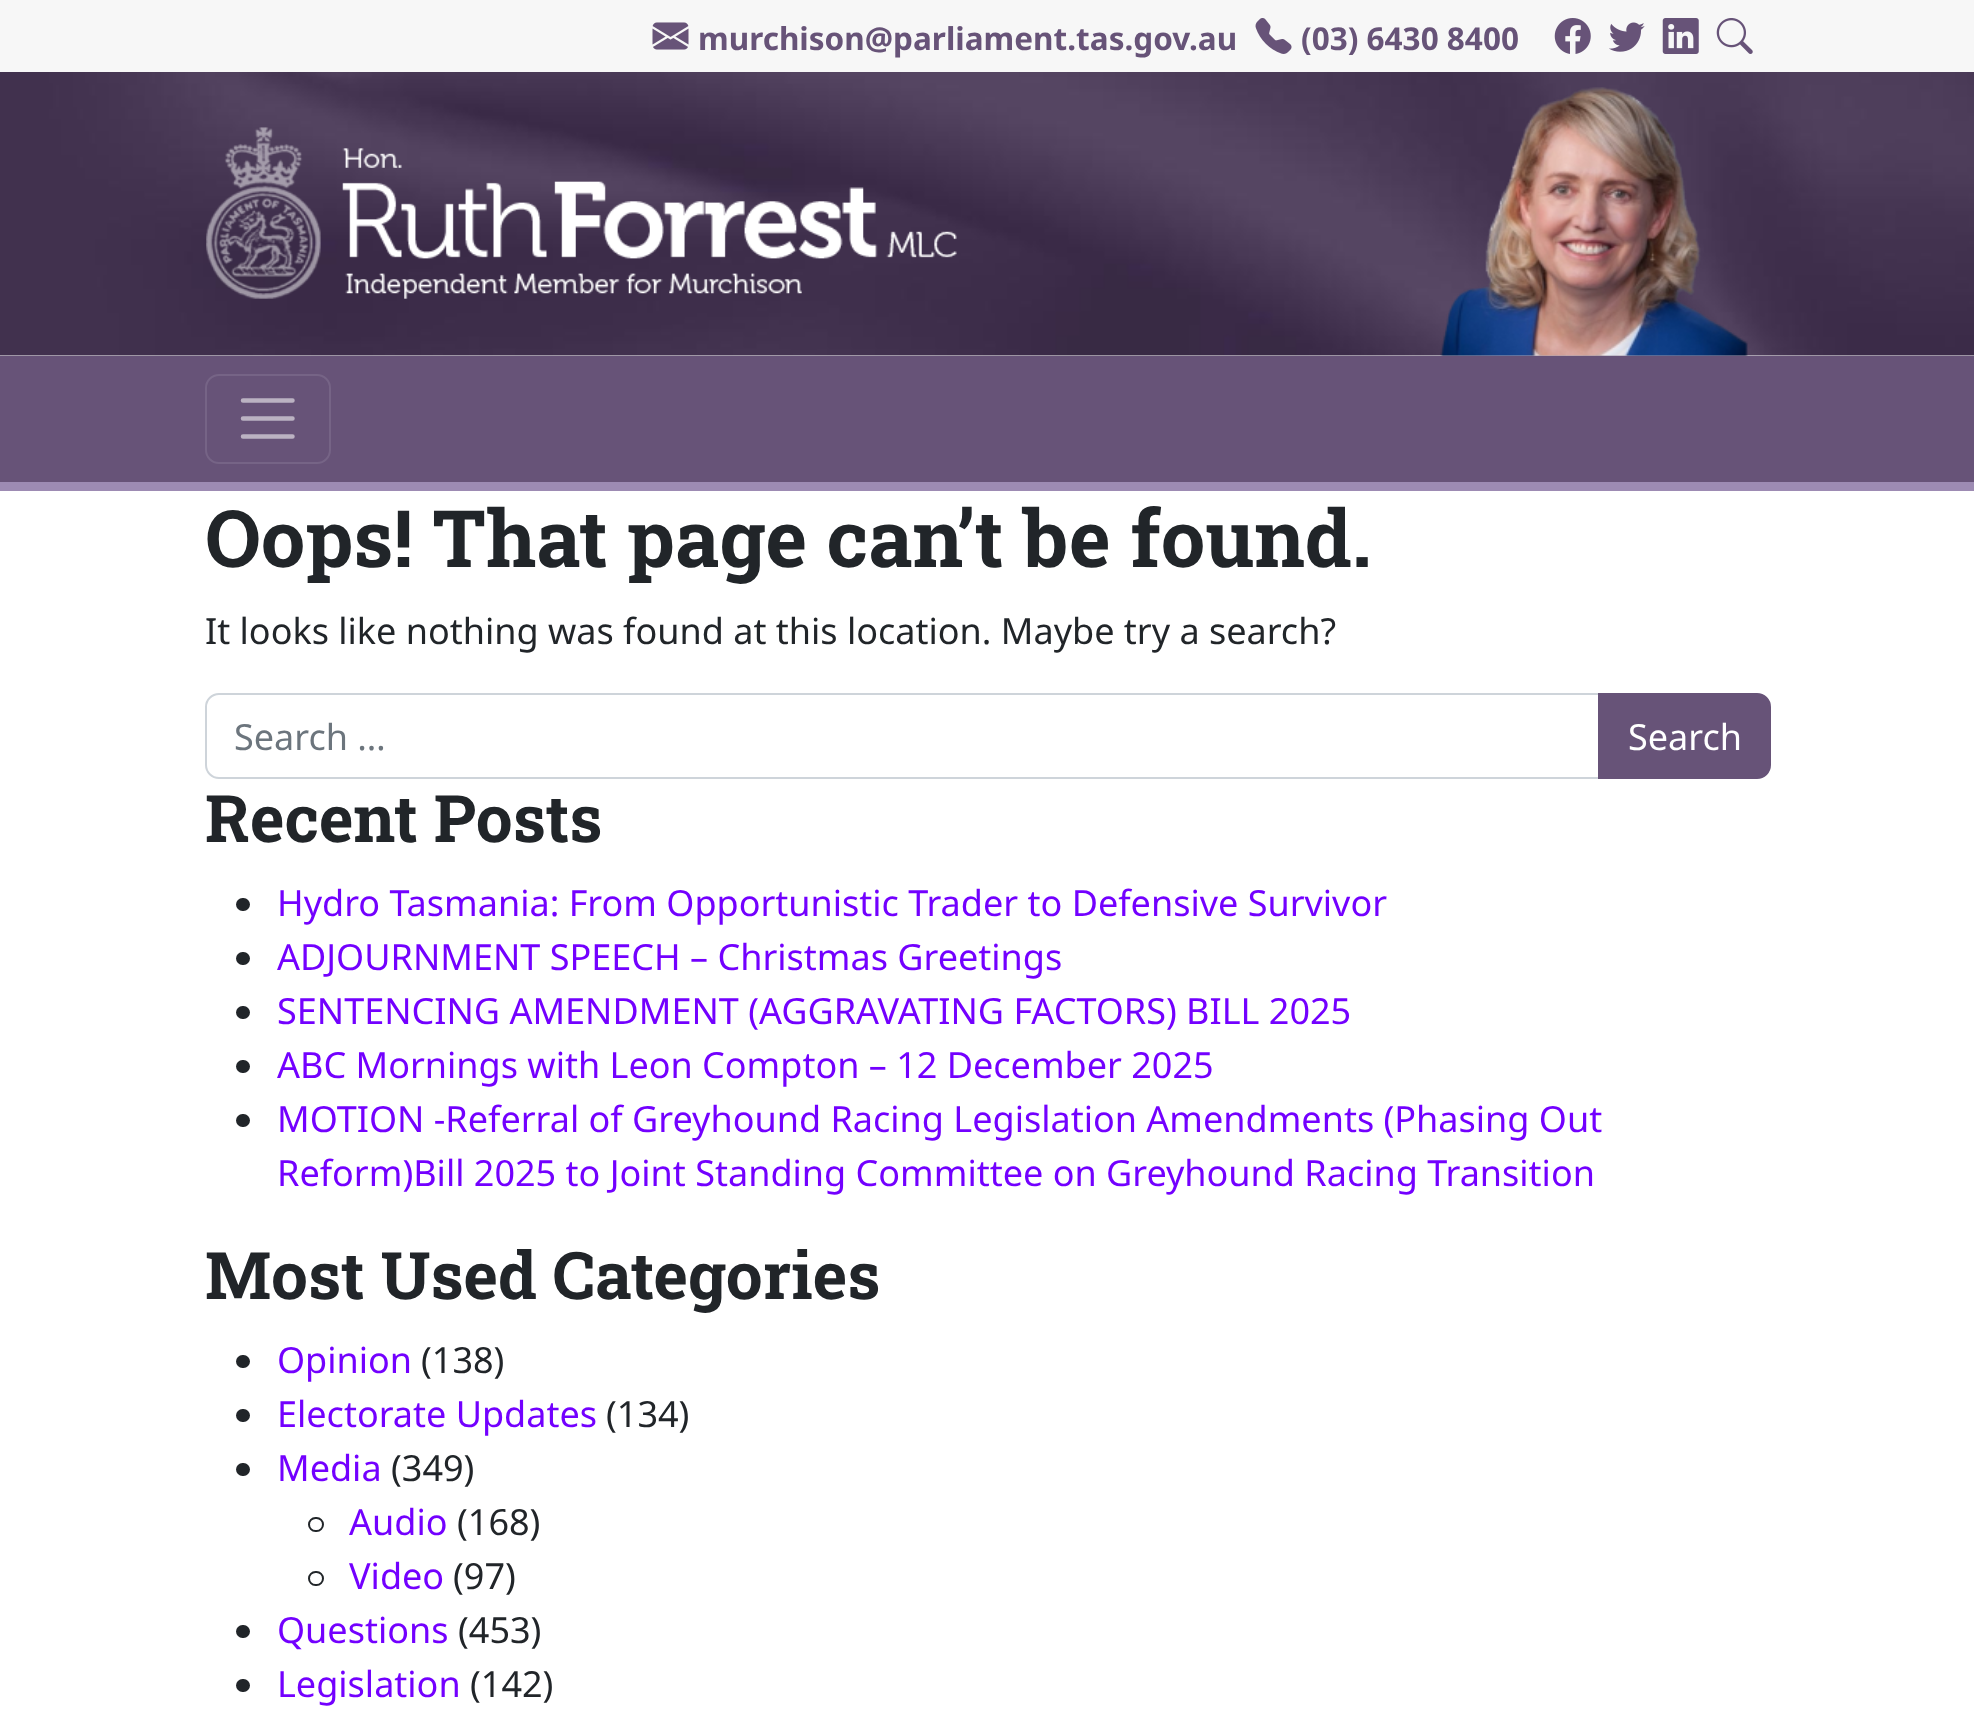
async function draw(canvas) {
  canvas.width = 1974;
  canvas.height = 1729;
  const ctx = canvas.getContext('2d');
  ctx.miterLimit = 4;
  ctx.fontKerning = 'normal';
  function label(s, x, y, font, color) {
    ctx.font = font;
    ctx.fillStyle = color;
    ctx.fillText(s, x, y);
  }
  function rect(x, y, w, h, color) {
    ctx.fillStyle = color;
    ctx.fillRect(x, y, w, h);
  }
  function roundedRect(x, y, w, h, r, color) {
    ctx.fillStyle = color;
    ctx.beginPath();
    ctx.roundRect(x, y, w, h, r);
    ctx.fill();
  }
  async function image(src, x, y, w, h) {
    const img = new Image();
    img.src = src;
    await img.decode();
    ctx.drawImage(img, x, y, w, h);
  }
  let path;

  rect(0, 0, 1974, 1729, '#fff');
  rect(0, 0, 1974, 72, '#f7f7f7');
  await image('assets/img1.png', 652, 22, 37, 28);
  label('murchison@parliament.tas.gov.au', 698, 50, 'bold 31.5px Noto Sans', '#675378');
  await image('assets/img2.png', 1255, 18, 37, 36);
  label('(03) 6430 8400', 1301, 50, 'bold 31.5px Noto Sans', '#675378');
  await image('assets/img3.png', 1554, 18, 37, 36);
  await image('assets/img4.png', 1609, 22, 36, 30);
  await image('assets/img5.png', 1662, 18, 37, 36);
  await image('assets/img6.png', 1716, 18, 37, 36);
  await image('assets/img7.png', 0, 72, 1974, 284);
  await image('assets/img8.png', 206, 127, 751, 172);
  await image('assets/img9.png', 1440, 87, 308, 269);
  rect(0, 356, 1974, 126, '#675378');
  rect(0, 482, 1974, 9, '#9d8bb3');
  ctx.beginPath();
  ctx.roundRect(206, 375, 124, 88, 13);
  ctx.strokeStyle = '#766486';
  ctx.lineWidth = 2;
  ctx.stroke();
  path = new Path2D('M243 400.5H292.5M243 418.5H292.5M243 436.5H292.5');
  ctx.strokeStyle = '#bbb2c2';
  ctx.lineWidth = 4.5;
  ctx.lineCap = 'round';
  ctx.stroke(path);
  label('Oops! That page can’t be found.', 205, 567, 'bold 79.1px Roboto Slab', '#212529');
  label('It looks like nothing was found at this location. Maybe try a search?', 205, 644, '36px Noto Sans', '#212529');
  ctx.beginPath();
  ctx.roundRect(206, 694, 1393, 84, [13, 0, 0, 13]);
  ctx.strokeStyle = '#ced4da';
  ctx.lineWidth = 2;
  ctx.stroke();
  label('Search …', 234, 750, '36px Noto Sans', '#6c757d');
  ctx.fillStyle = '#675378';
  ctx.beginPath();
  ctx.roundRect(1599, 694, 171, 84, [0, 13, 13, 0]);
  ctx.fill();
  ctx.strokeStyle = '#675378';
  ctx.stroke();
  label('Search', 1628, 750, '36px Noto Sans', '#fff');
  label('Recent Posts', 205, 842, 'bold 65.5px Roboto Slab', '#212529');
  roundedRect(236, 898, 14, 13, 6.5, '#212529');
  label('Hydro Tasmania: From Opportunistic Trader to Defensive Survivor', 277, 916, '36px Noto Sans', '#7300ff');
  roundedRect(236, 952, 14, 13, 6.5, '#212529');
  label('ADJOURNMENT SPEECH – Christmas Greetings', 277, 970, '36px Noto Sans', '#7300ff');
  roundedRect(236, 1006, 14, 13, 6.5, '#212529');
  label('SENTENCING AMENDMENT (AGGRAVATING FACTORS) BILL 2025', 277, 1024, '36px Noto Sans', '#7300ff');
  roundedRect(236, 1060, 14, 13, 6.5, '#212529');
  label('ABC Mornings with Leon Compton – 12 December 2025', 277, 1078, '36px Noto Sans', '#7300ff');
  roundedRect(236, 1114, 14, 13, 6.5, '#212529');
  label('MOTION -Referral of Greyhound Racing Legislation Amendments (Phasing Out', 277, 1132, '36px Noto Sans', '#7300ff');
  label('Reform)Bill 2025 to Joint Standing Committee on Greyhound Racing Transition', 277, 1186, '36px Noto Sans', '#7300ff');
  label('Most Used Categories', 205, 1299, 'bold 65.5px Roboto Slab', '#212529');
  roundedRect(236, 1355, 14, 13, 6.5, '#212529');
  label('Opinion', 277, 1373, '36px Noto Sans', '#7300ff');
  label('(138)', 421, 1373, '36px Noto Sans', '#212529');
  roundedRect(236, 1409, 14, 13, 6.5, '#212529');
  label('Electorate Updates', 277, 1427, '36px Noto Sans', '#7300ff');
  label('(134)', 606, 1427, '36px Noto Sans', '#212529');
  roundedRect(236, 1463, 14, 13, 6.5, '#212529');
  label('Media', 277, 1481, '36px Noto Sans', '#7300ff');
  label('(349)', 391, 1481, '36px Noto Sans', '#212529');
  ctx.beginPath();
  ctx.roundRect(309, 1518, 14, 13, 6.5);
  ctx.strokeStyle = '#212529';
  ctx.stroke();
  label('Audio', 349, 1535, '36px Noto Sans', '#7300ff');
  label('(168)', 457, 1535, '36px Noto Sans', '#212529');
  ctx.beginPath();
  ctx.roundRect(309, 1572, 14, 13, 6.5);
  ctx.stroke();
  label('Video', 349, 1589, '36px Noto Sans', '#7300ff');
  label('(97)', 453, 1589, '36px Noto Sans', '#212529');
  roundedRect(236, 1625, 14, 13, 6.5, '#212529');
  label('Questions', 277, 1643, '36px Noto Sans', '#7300ff');
  label('(453)', 458, 1643, '36px Noto Sans', '#212529');
  roundedRect(236, 1679, 14, 13, 6.5, '#212529');
  label('Legislation', 277, 1697, '36px Noto Sans', '#7300ff');
  label('(142)', 470, 1697, '36px Noto Sans', '#212529');
}

draw(document.querySelector('canvas'));
